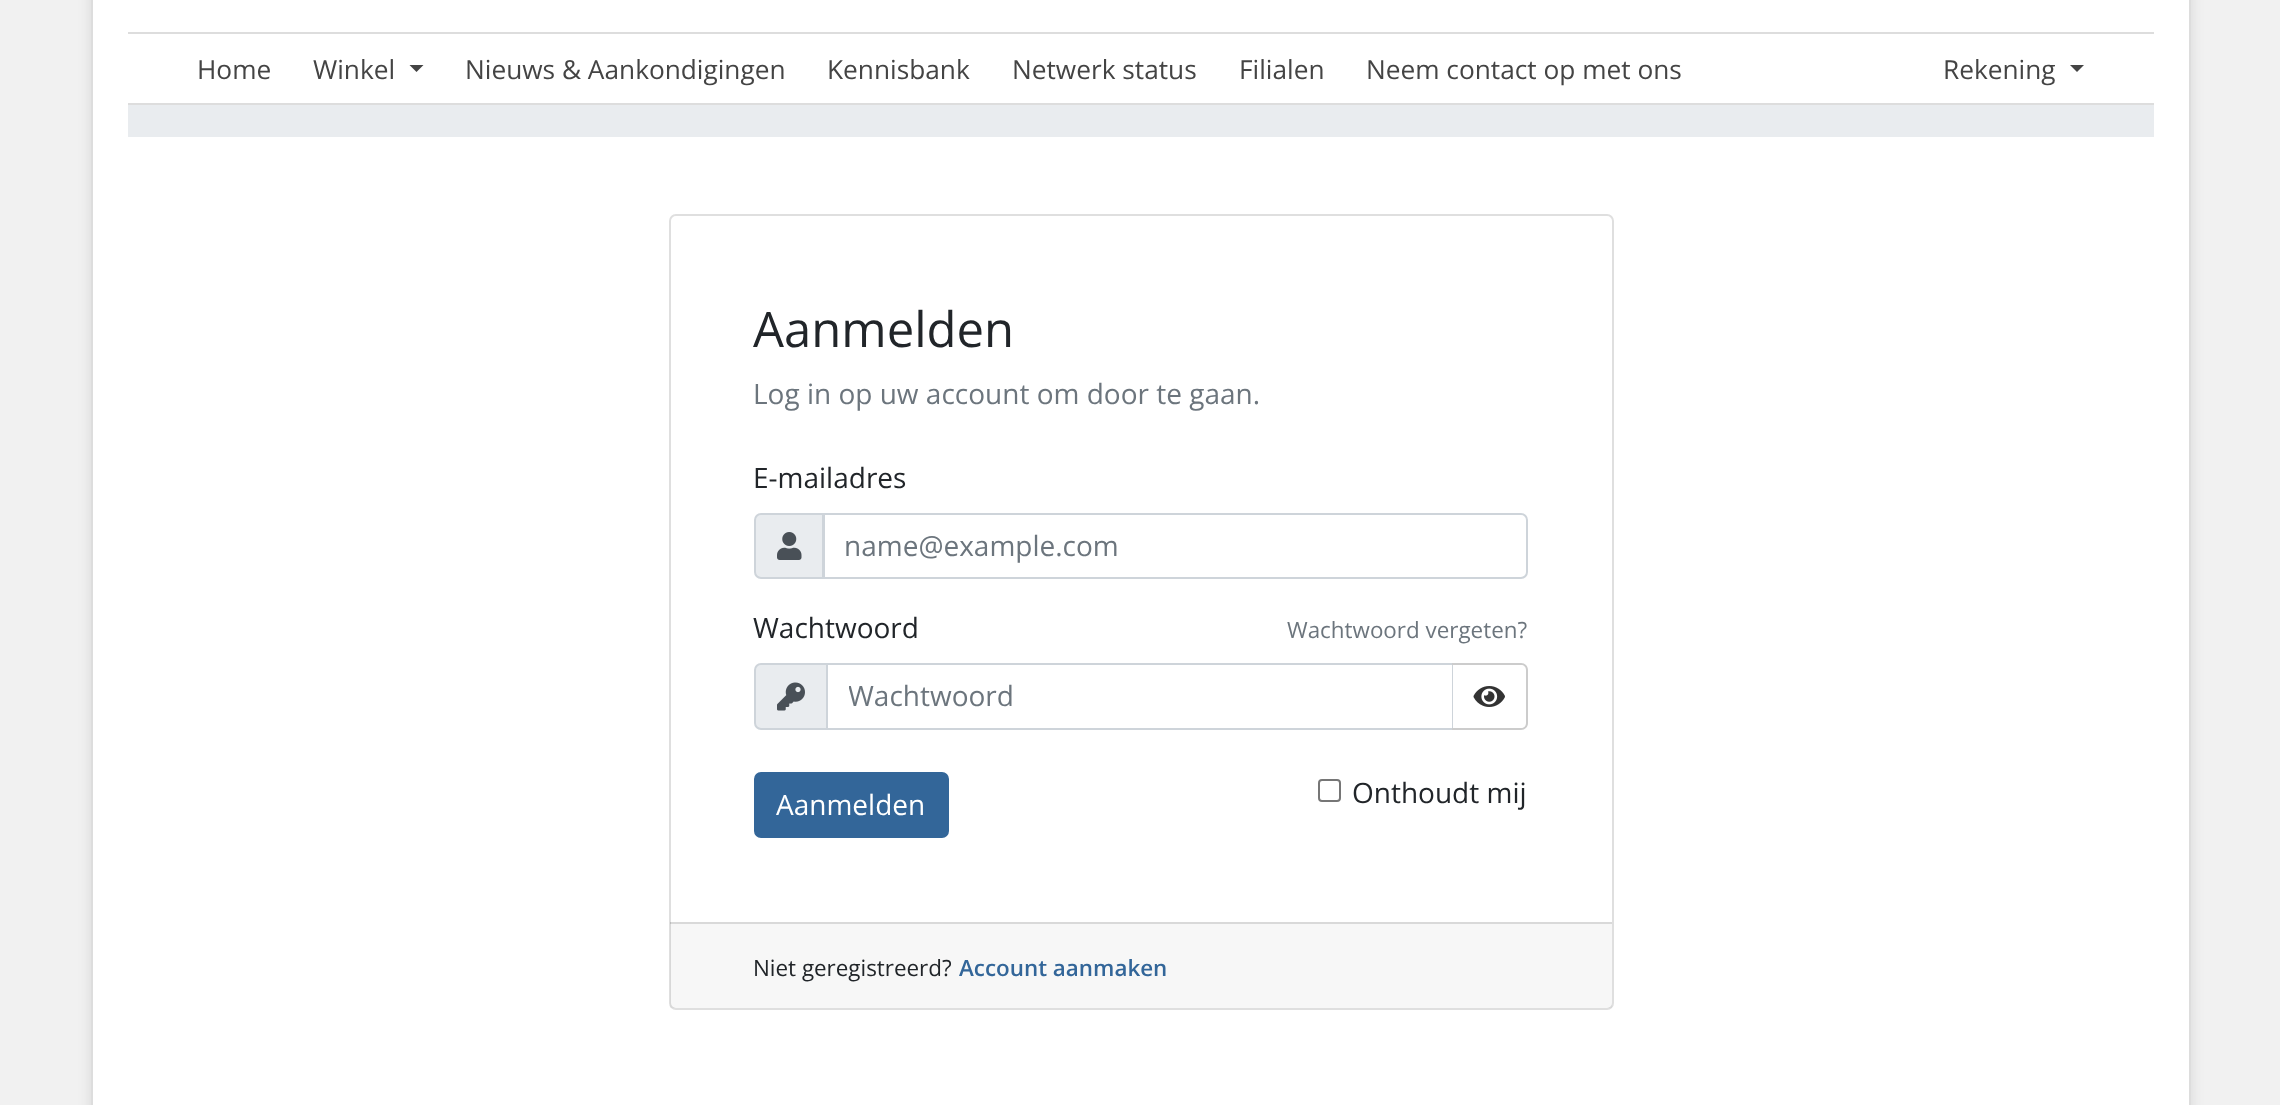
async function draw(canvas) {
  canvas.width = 2280;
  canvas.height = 1105;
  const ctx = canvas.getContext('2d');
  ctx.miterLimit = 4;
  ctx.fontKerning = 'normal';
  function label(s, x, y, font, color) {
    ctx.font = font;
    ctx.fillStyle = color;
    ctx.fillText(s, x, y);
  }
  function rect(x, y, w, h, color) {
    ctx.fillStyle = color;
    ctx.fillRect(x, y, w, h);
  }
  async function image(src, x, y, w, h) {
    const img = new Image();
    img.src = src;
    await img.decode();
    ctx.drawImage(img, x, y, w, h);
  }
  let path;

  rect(0, 0, 2280, 1105, '#f1f1f1');
  ctx.fillStyle = '#0000001a';
  ctx.filter = 'blur(7px)';
  ctx.beginPath();
  ctx.roundRect(91, -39, 2100, 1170, 18);
  ctx.fill();
  ctx.filter = 'none';
  ctx.fillStyle = '#fff';
  ctx.beginPath();
  ctx.rect(92, -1, 2098, 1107);
  ctx.fill();
  ctx.strokeStyle = '#ddd';
  ctx.lineWidth = 2;
  ctx.stroke();
  rect(128, 32, 2026, 2, '#ddd');
  rect(128, 103, 2026, 2, '#ddd');
  label('Home', 197, 79, '26.25px Open Sans', '#444');
  label('Winkel', 313, 79, '26.25px Open Sans', '#444');
  path = new Path2D('M409.5 65H423.5L416.5 72Z');
  ctx.fill(path);
  label('Nieuws & Aankondigingen', 465, 79, '26.25px Open Sans', '#444');
  label('Kennisbank', 827, 79, '26.25px Open Sans', '#444');
  label('Netwerk status', 1012, 79, '26.25px Open Sans', '#444');
  label('Filialen', 1239, 79, '26.25px Open Sans', '#444');
  label('Neem contact op met ons', 1366, 79, '26.25px Open Sans', '#444');
  label('Rekening', 1943, 79, '26.25px Open Sans', '#444');
  path = new Path2D('M2070 65H2084L2077 72Z');
  ctx.fill(path);
  rect(128, 105, 2026, 32, '#e9ecef');
  ctx.beginPath();
  ctx.roundRect(670, 215, 943, 794, 6);
  ctx.strokeStyle = '#dfdfdf';
  ctx.stroke();
  label('Aanmelden', 753, 347, '49px Open Sans', '#212529');
  label('Log in op uw account om door te gaan.', 753, 404, '28px Open Sans', '#6c757d');
  label('E-mailadres', 753, 488, '28px Open Sans', '#212529');
  ctx.fillStyle = '#e9ecef';
  ctx.beginPath();
  ctx.roundRect(755, 514, 68, 64, [6, 0, 0, 6]);
  ctx.fill();
  ctx.strokeStyle = '#ced4da';
  ctx.stroke();
  await image('assets/img1.png', 777, 532, 25, 28);
  ctx.beginPath();
  ctx.roundRect(824, 514, 703, 64, [0, 6, 6, 0]);
  ctx.stroke();
  label('name@example.com', 844, 556, '28px Open Sans', '#6c757d');
  label('Wachtwoord', 753, 638, '28px Open Sans', '#212529');
  label('Wachtwoord vergeten?', 1287, 638, '22.4px Open Sans', '#6c757d');
  ctx.fillStyle = '#e9ecef';
  ctx.beginPath();
  ctx.roundRect(755, 664, 72, 65, [6, 0, 0, 6]);
  ctx.fill();
  ctx.stroke();
  await image('assets/img2.png', 777, 682, 28, 29);
  ctx.strokeRect(827, 664, 626, 65);
  ctx.save();
  ctx.beginPath();
  ctx.rect(849, 677, 583, 39);
  ctx.clip();
  label('Wachtwoord', 848, 706, '28px Open Sans', '#6c757d');
  ctx.restore();
  ctx.fillStyle = '#fff';
  ctx.beginPath();
  ctx.roundRect(1453, 663, 75, 67, [0, 7, 7, 0]);
  ctx.fill();
  ctx.fillStyle = '#ccc';
  path = new Path2D('M1452 663H1521C1525 663 1528 666 1528 670V723C1528 727 1525 730 1521 730H1452ZM1452 665H1521C1524 665 1526 667 1526 670V723C1526 726 1524 728 1521 728H1452Z');
  ctx.fill(path, 'evenodd');
  await image('assets/img3.png', 1473, 686, 32, 21);
  ctx.fillStyle = '#369';
  ctx.beginPath();
  ctx.roundRect(755, 773, 193, 64, 6);
  ctx.fill();
  ctx.strokeStyle = '#369';
  ctx.stroke();
  label('Aanmelden', 776, 815, '28px Open Sans', '#fff');
  ctx.beginPath();
  ctx.roundRect(1319, 780, 21, 21, 3);
  ctx.strokeStyle = '#767676';
  ctx.stroke();
  label('Onthoudt mij', 1352, 803, '28px Open Sans', '#212529');
  rect(670, 922, 942, 86, '#00000008');
  rect(670, 922, 942, 2, '#0000001f');
  label('Niet geregistreerd?', 753, 976, '22.4px Open Sans', '#212529');
  label('Account aanmaken', 959, 976, '600 22.4px Open Sans', '#369');
}

draw(document.querySelector('canvas'));
